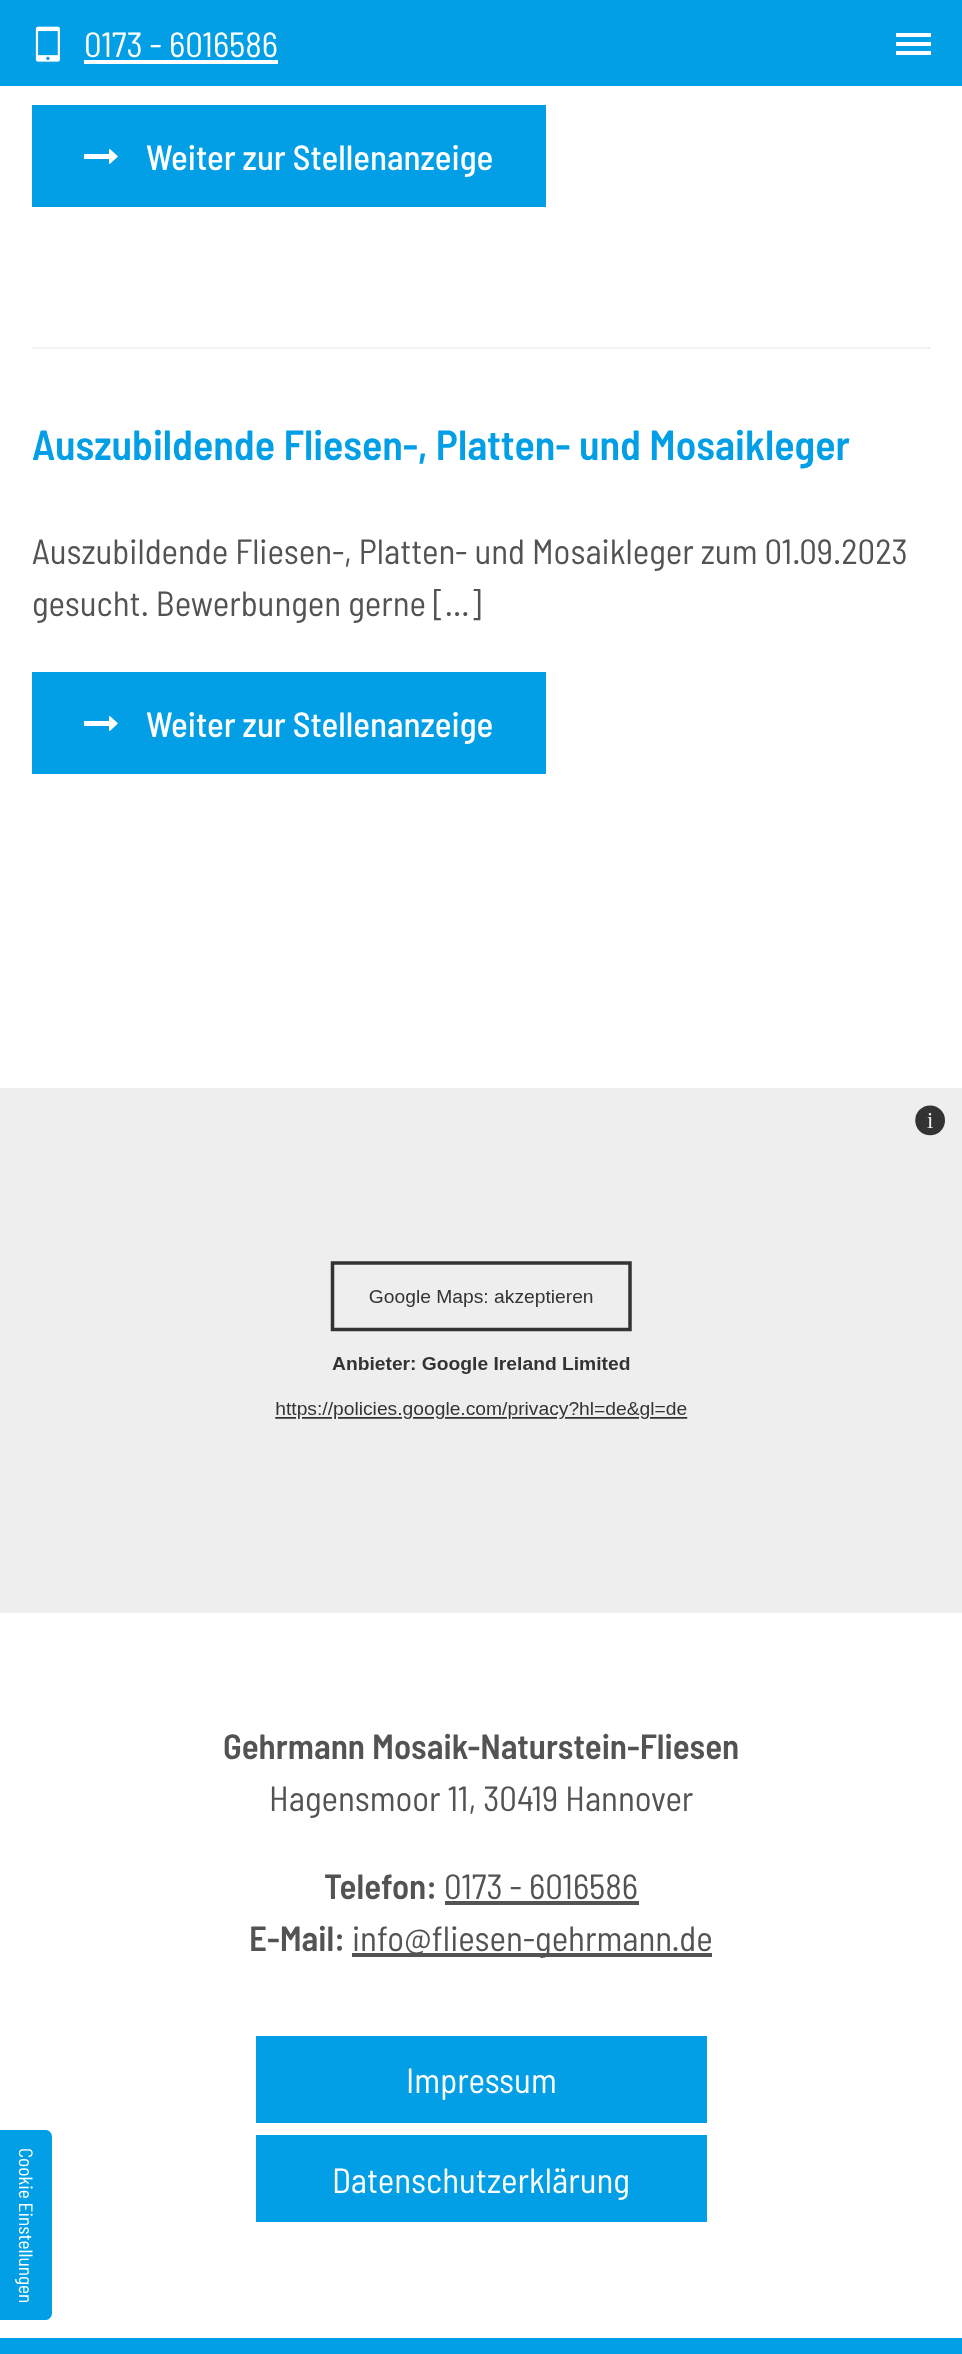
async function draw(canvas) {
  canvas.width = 962;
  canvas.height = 2354;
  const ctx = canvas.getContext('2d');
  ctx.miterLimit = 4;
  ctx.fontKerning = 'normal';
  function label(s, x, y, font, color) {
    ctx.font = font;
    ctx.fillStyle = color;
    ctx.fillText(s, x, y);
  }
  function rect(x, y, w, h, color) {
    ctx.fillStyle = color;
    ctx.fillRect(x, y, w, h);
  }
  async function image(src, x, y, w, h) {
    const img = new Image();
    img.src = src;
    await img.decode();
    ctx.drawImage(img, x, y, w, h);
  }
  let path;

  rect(0, 0, 962, 2354, '#fff');
  rect(0, 0, 962, 86, '#029fe6');
  await image('assets/img1.png', 35, 26, 25, 36);
  label('0173 - 6016586', 84, 57, '35px Barlow Semi Condensed', '#fff');
  rect(84, 60, 194, 4, '#fff');
  rect(896, 42, 35, 4, '#fff');
  rect(896, 33, 35, 4, '#fff');
  rect(896, 51, 35, 4, '#fff');
  rect(32, 347, 899, 2, '#f2f2f0');
  rect(32, 105, 514, 102, '#029fe6');
  await image('assets/img2.png', 84, 149, 34, 15);
  label('Weiter zur Stellenanzeige', 146, 170, '500 35px Barlow Semi Condensed', '#fff');
  label('Auszubildende Fliesen-, Platten- und Mosaikleger', 32, 460, '600 42px Barlow Semi Condensed', '#029fe6');
  label('Auszubildende Fliesen-, Platten- und Mosaikleger zum 01.09.2023', 32, 564, '35px Barlow Semi Condensed', '#535353');
  label('gesucht. Bewerbungen gerne [...]', 32, 616, '35px Barlow Semi Condensed', '#535353');
  rect(32, 672, 514, 102, '#029fe6');
  await image('assets/img2.png', 84, 716, 34, 15);
  label('Weiter zur Stellenanzeige', 146, 737, '500 35px Barlow Semi Condensed', '#fff');
  rect(0, 2338, 962, 16, '#029fe6');
  await image('assets/img3.png', 0, 1088, 962, 525);
  label('Gehrmann Mosaik-Naturstein-Fliesen', 223, 1759, '600 35px Barlow Semi Condensed', '#535353');
  label('Hagensmoor 11, 30419 Hannover', 269, 1811, '35px Barlow Semi Condensed', '#535353');
  label('Telefon:', 324, 1899, '600 35px Barlow Semi Condensed', '#535353');
  label('0173 - 6016586', 444, 1899, '35px Barlow Semi Condensed', '#535353');
  rect(445, 1901, 194, 4, '#535353');
  label('E-Mail:', 249, 1951, '600 35px Barlow Semi Condensed', '#535353');
  rect(352, 1953, 360, 4, '#535353');
  label('info@fliesen-gehrmann.de', 352, 1951, '35px Barlow Semi Condensed', '#535353');
  rect(256, 2036, 451, 87, '#029fe6');
  label('Impressum', 406, 2093, '35px Barlow Semi Condensed', '#fff');
  rect(256, 2135, 451, 87, '#029fe6');
  label('Datenschutzerklärung', 332, 2193, '35px Barlow Semi Condensed', '#fff');
  ctx.fillStyle = '#029fe6';
  path = new Path2D('M52 2137V2313C52 2317 49 2320 46 2320H0V2130H46C49 2130 52 2133 52 2137Z');
  ctx.fill(path);
  ctx.font = '19.25px Barlow Semi Condensed';
  ctx.fillStyle = '#fff';
  ctx.save();
  ctx.translate(19, 2148);
  ctx.rotate(90 * Math.PI / 180);
  ctx.fillText('Cookie Einstellungen', 0, 0);
  ctx.restore();
}

draw(document.querySelector('canvas'));
